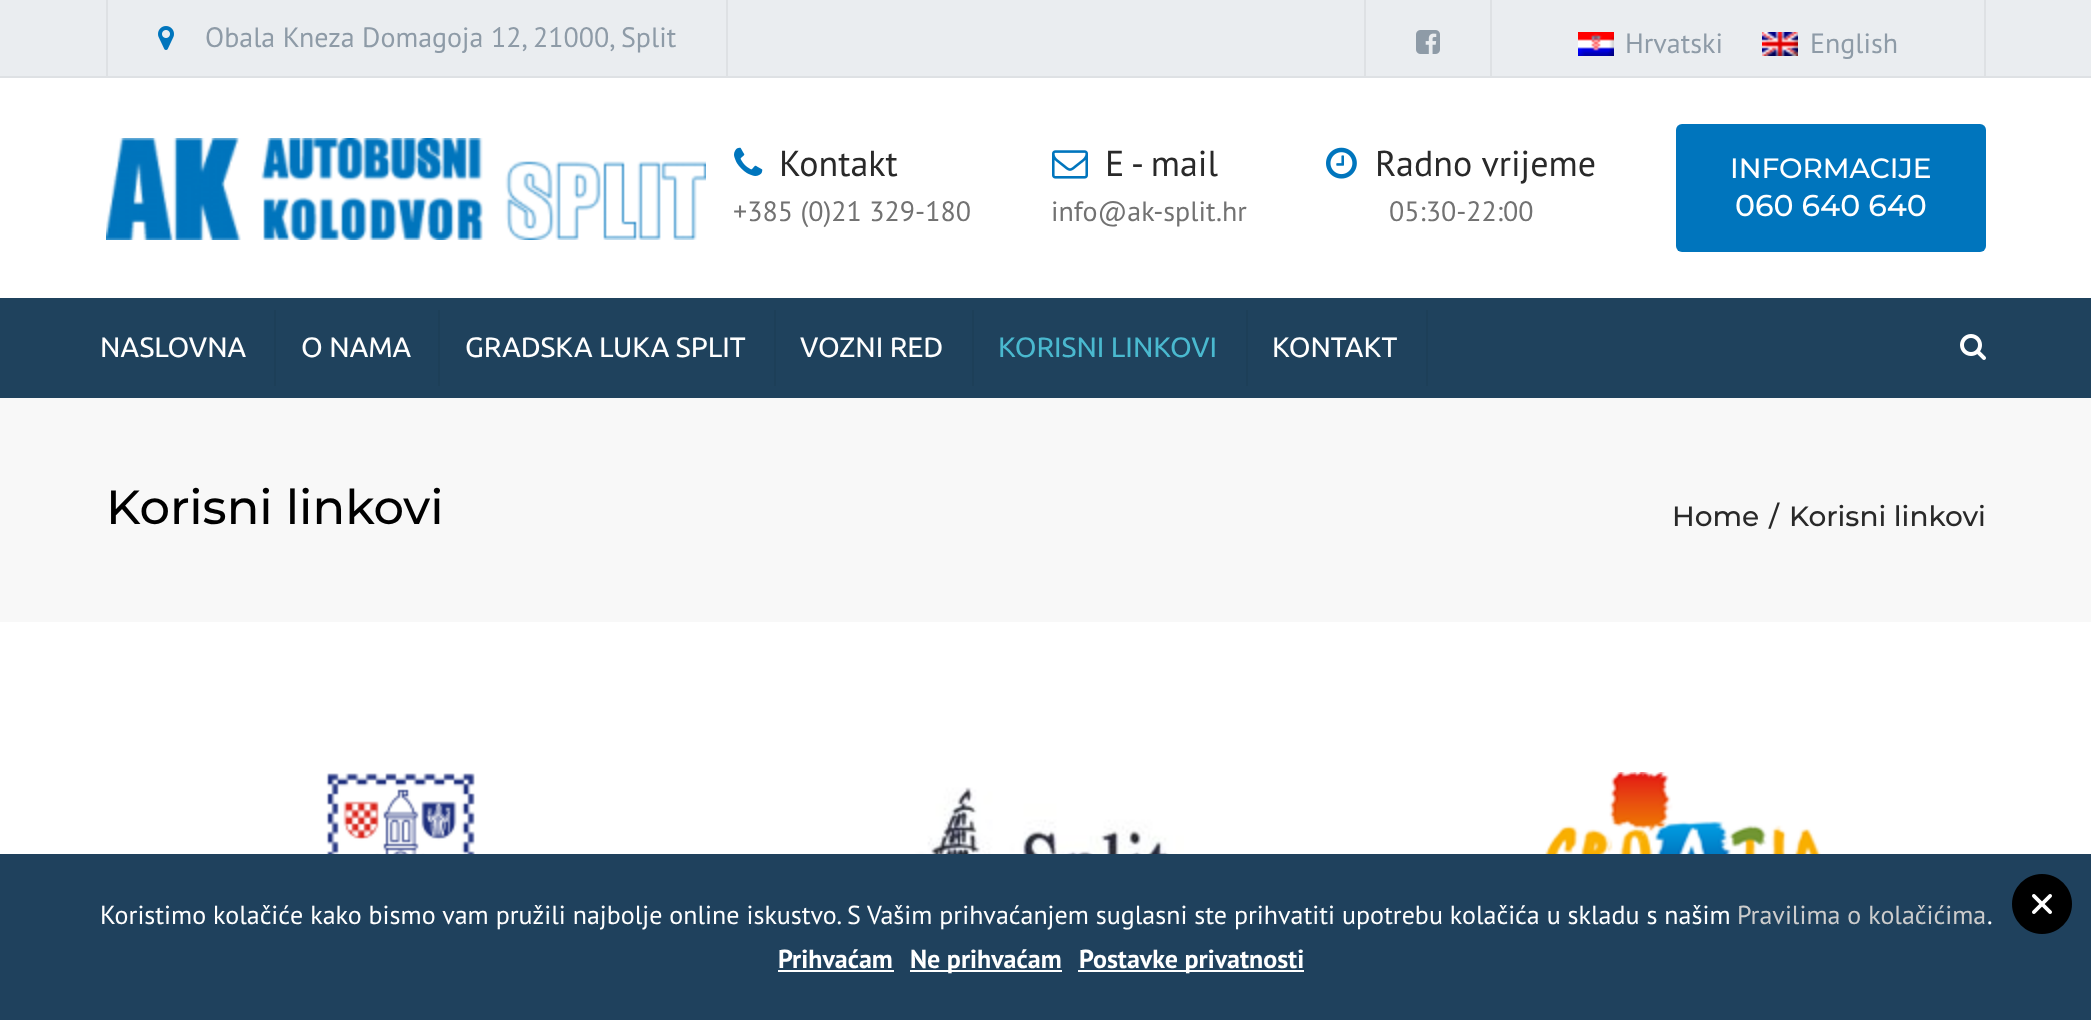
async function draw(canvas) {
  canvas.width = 2091;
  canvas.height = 1020;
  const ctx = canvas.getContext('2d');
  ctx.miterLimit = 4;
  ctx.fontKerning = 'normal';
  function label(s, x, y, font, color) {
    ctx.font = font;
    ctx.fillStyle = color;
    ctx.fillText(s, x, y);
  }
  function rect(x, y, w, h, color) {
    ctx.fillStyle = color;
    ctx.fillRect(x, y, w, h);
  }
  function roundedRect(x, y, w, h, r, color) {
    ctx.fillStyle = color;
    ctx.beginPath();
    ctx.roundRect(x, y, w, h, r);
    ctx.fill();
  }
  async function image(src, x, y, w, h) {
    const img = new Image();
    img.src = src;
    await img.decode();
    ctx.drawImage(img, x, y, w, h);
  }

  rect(0, 0, 2091, 1020, '#fff');
  rect(0, 0, 2091, 76, '#eaedf0');
  rect(0, 76, 2091, 2, '#dee1e4');
  rect(726, 0, 2, 76, '#dee1e4');
  rect(106, 0, 2, 76, '#dee1e4');
  await image('assets/img1.png', 158, 26, 16, 24);
  label('Obala Kneza Domagoja 12, 21000, Split', 205, 47, '28px PT Sans', '#8e9ba7');
  rect(1364, 0, 2, 76, '#dee1e4');
  await image('assets/img2.png', 1416, 30, 24, 24);
  rect(1984, 0, 2, 76, '#dee1e4');
  rect(1490, 0, 2, 76, '#dee1e4');
  await image('assets/img3.png', 1578, 32, 36, 24);
  label('Hrvatski', 1625, 53, '28px PT Sans', '#8e9ba7');
  await image('assets/img4.png', 1762, 32, 36, 24);
  label('English', 1810, 53, '28px PT Sans', '#8e9ba7');
  await image('assets/img5.png', 106, 138, 600, 102);
  await image('assets/img6.png', 734, 147, 29, 29);
  label('Kontakt', 779, 176, '36px PT Sans', '#292929');
  label('+385 (0)21 329-180', 733, 221, '28px PT Sans', '#727272');
  await image('assets/img7.png', 1052, 150, 36, 29);
  label('E - mail', 1105, 176, '36px PT Sans', '#292929');
  label('info@ak-split.hr', 1051, 221, '28px PT Sans', '#727272');
  await image('assets/img8.png', 1326, 147, 31, 32);
  label('Radno vrijeme', 1375, 176, '36px PT Sans', '#292929');
  label('05:30-22:00', 1389, 221, '28px PT Sans', '#727272');
  roundedRect(1676, 124, 310, 128, 6, '#0075bd');
  label('INFORMACIJE', 1730, 178, '500 28px Montserrat', '#fff');
  label('060 640 640', 1735, 216, '500 30px Montserrat', '#fff');
  rect(0, 298, 2091, 100, '#1f425d');
  label('NASLOVNA', 100, 357, '28px Ubuntu', '#fff');
  rect(274, 310, 2, 76, '#1d3f58');
  label('O NAMA', 301, 357, '28px Ubuntu', '#fff');
  rect(438, 310, 2, 76, '#1d3f58');
  label('GRADSKA LUKA SPLIT', 465, 357, '28px Ubuntu', '#fff');
  rect(774, 310, 2, 76, '#1d3f58');
  label('VOZNI RED', 800, 357, '28px Ubuntu', '#fff');
  rect(972, 310, 2, 76, '#1d3f58');
  label('KORISNI LINKOVI', 998, 357, '28px Ubuntu', '#4ab9cf');
  rect(1246, 310, 2, 76, '#1d3f58');
  label('KONTAKT', 1272, 357, '28px Ubuntu', '#fff');
  rect(1426, 310, 2, 76, '#1d3f58');
  await image('assets/img9.png', 1960, 334, 26, 26);
  rect(0, 398, 2091, 224, '#f8f8f8');
  label('Korisni linkovi', 106, 524, '500 48px Montserrat', '#000');
  label('Home', 1672, 526, '500 28px Montserrat', '#292929');
  label('/', 1769, 526, '500 28px Montserrat', '#292929');
  label('Korisni linkovi', 1789, 526, '500 28px Montserrat', '#292929');
  await image('assets/img10.png', 326, 773, 149, 81);
  await image('assets/img11.png', 896, 787, 288, 67);
  await image('assets/img12.png', 1544, 772, 298, 82);
  rect(0, 854, 2091, 166, '#1f415d');
  label('Koristimo kolačiće kako bismo vam pružili najbolje online iskustvo. S Vašim prihvaćanjem suglasni ste prihvatiti upotrebu kolačića u skladu s našim', 100, 924, '26px PT Sans', '#fff');
  label('Pravilima o kolačićima', 1737, 924, '26px PT Sans', '#ccc');
  label('.', 1987, 924, '26px PT Sans', '#fff');
  await image('assets/img13.png', 2012, 874, 60, 60);
  label('Prihvaćam', 778, 968, 'bold 26px PT Sans', '#fff');
  rect(778, 970, 116, 2, '#fff');
  rect(910, 970, 152, 2, '#fff');
  label('Ne prihvaćam', 910, 968, 'bold 26px PT Sans', '#fff');
  rect(1078, 970, 226, 2, '#fff');
  label('Postavke privatnosti', 1079, 968, 'bold 26px PT Sans', '#fff');
}

draw(document.querySelector('canvas'));
